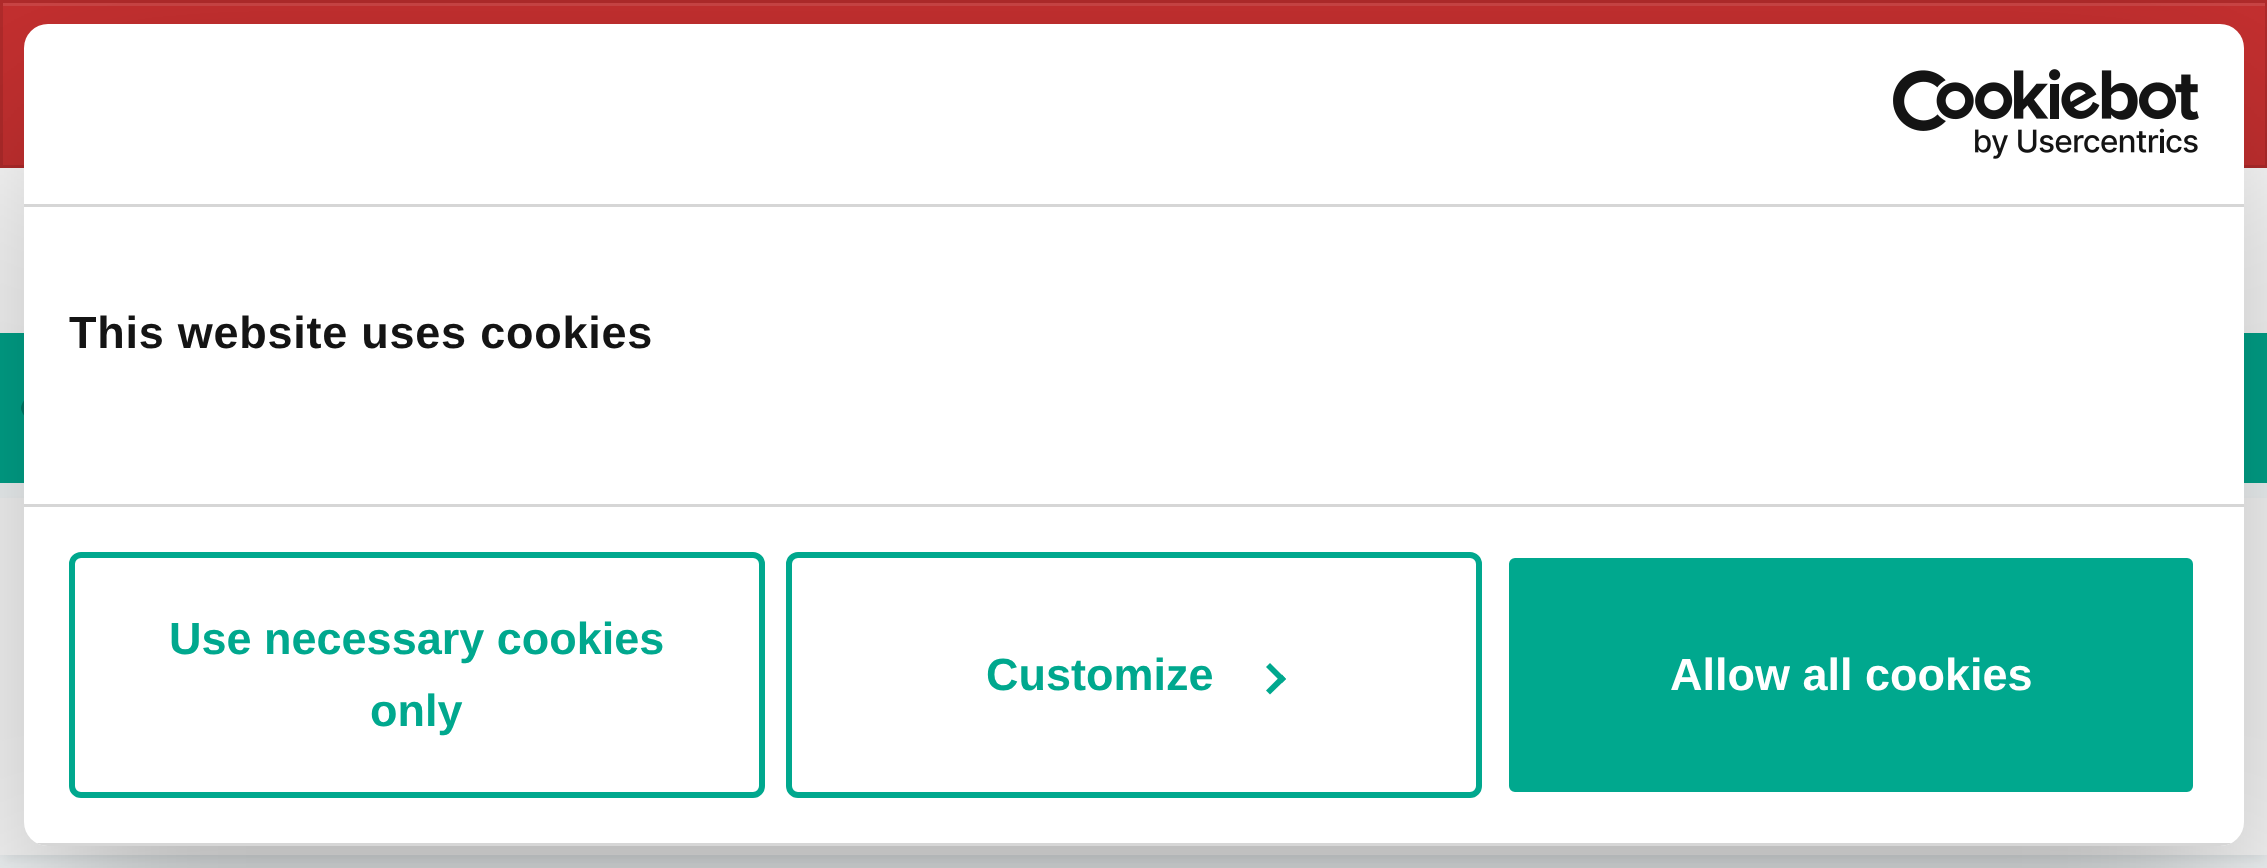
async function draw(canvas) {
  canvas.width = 2267;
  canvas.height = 868;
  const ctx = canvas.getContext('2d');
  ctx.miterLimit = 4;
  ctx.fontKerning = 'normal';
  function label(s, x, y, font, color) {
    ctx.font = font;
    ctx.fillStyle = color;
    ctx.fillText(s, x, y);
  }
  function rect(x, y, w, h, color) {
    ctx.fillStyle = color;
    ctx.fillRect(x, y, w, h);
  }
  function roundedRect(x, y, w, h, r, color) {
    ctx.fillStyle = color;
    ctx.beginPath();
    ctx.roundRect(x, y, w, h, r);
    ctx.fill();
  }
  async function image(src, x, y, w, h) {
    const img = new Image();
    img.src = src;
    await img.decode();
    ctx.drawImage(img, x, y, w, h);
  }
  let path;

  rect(0, 0, 2267, 868, '#f9fdfe');
  rect(3, 6, 2262, 159, '#c53030');
  rect(3, 3, 2262, 3, '#cb4545');
  ctx.strokeStyle = '#b12b2b';
  ctx.lineWidth = 3;
  ctx.strokeRect(1.5, 1.5, 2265, 165);
  rect(0, 168, 2267, 165, '#fff');
  rect(0, 333, 2267, 150, '#00a88e');
  ctx.fillStyle = '#007e6b';
  path = new Path2D('M60 408V452C54 452 49 450 44 444L23 414C22 412 21 410 21 408Z');
  ctx.fill(path);
  path = new Path2D('M60 408H21C21 406 22 404 23 402L44 372C49 366 54 364 60 364Z');
  ctx.fill(path);
  ctx.fillStyle = '#2d37481a';
  ctx.filter = 'blur(6px)';
  ctx.beginPath();
  ctx.rect(3, 507, 2262, 351);
  ctx.fill();
  ctx.filter = 'none';
  rect(0, 498, 2267, 357, '#fff');
  ctx.fillStyle = '#0000004d';
  ctx.filter = 'blur(102px)';
  ctx.beginPath();
  ctx.roundRect(24, 120, 2220, 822, 24);
  ctx.fill();
  ctx.filter = 'none';
  roundedRect(24, 24, 2220, 822, 24, '#fff');
  rect(24, 204, 2220, 3, '#d6d6d6');
  await image('assets/img1.png', 1893, 69, 306, 90);
  rect(24, 504, 2220, 3, '#d6d6d6');
  ctx.letterSpacing = '0.75px';
  label('This website uses cookies', 69, 348, 'bold 45px Liberation Sans', '#141414');
  ctx.save();
  ctx.beginPath();
  ctx.roundRect(24, 24, 2220, 822, 24);
  ctx.clip();
  rect(36, 843, 2196, 3, '#d6d6d6');
  ctx.restore();
  ctx.beginPath();
  ctx.roundRect(72, 555, 690, 240, 9);
  ctx.strokeStyle = '#00a88e';
  ctx.lineWidth = 6;
  ctx.stroke();
  ctx.letterSpacing = '0px';
  label('Use necessary cookies', 169, 654, 'bold 45px Liberation Sans', '#00a88e');
  label('only', 370, 726, 'bold 45px Liberation Sans', '#00a88e');
  ctx.beginPath();
  ctx.roundRect(789, 555, 690, 240, 9);
  ctx.stroke();
  label('Customize', 986, 690, 'bold 45px Liberation Sans', '#00a88e');
  path = new Path2D('M1270 663L1286 679L1282 683L1266 667Z');
  ctx.fill(path);
  path = new Path2D('M1282 674.5L1286 679L1270 694.5L1266 690.5Z');
  ctx.fill(path);
  ctx.beginPath();
  ctx.roundRect(1506, 555, 690, 240, 9);
  ctx.fill();
  ctx.strokeStyle = '#fff';
  ctx.stroke();
  label('Allow all cookies', 1670, 690, 'bold 45px Liberation Sans', '#fff');
}

draw(document.querySelector('canvas'));
